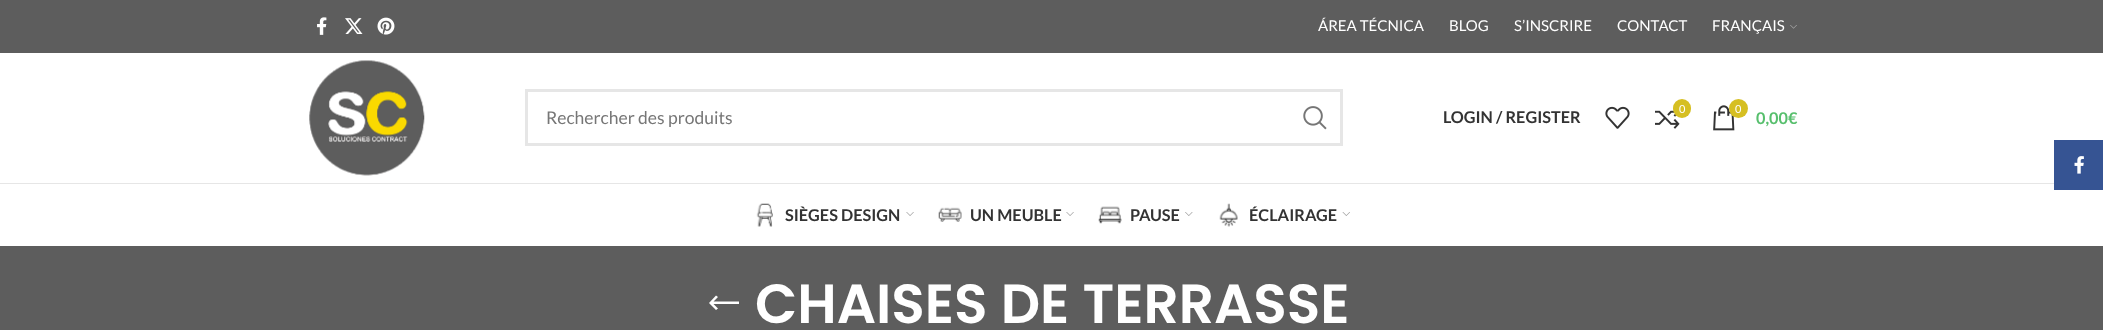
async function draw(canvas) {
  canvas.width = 2103;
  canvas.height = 330;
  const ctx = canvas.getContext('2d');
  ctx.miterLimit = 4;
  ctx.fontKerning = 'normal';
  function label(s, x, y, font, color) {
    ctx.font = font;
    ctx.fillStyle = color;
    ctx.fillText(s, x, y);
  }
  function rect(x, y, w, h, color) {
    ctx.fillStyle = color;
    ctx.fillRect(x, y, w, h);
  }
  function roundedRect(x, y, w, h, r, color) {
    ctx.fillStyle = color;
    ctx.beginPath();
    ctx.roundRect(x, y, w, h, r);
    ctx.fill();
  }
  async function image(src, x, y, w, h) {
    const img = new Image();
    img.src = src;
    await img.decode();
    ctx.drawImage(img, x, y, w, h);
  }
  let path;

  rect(0, 0, 2103, 330, '#fff');
  rect(0, 0, 2103, 53, '#5d5d5d');
  await image('assets/img1.png', 317, 17, 10, 18);
  await image('assets/img2.png', 345, 18, 18, 16);
  await image('assets/img3.png', 377, 17, 18, 18);
  label('ÁREA TÉCNICA', 1318, 31, '15px Lato', '#fff');
  label('BLOG', 1449, 31, '15px Lato', '#fff');
  label('S’INSCRIRE', 1514, 31, '15px Lato', '#fff');
  label('CONTACT', 1617, 31, '15px Lato', '#fff');
  label('FRANÇAIS', 1712, 31, '15px Lato', '#fff');
  await image('assets/img4.png', 1790, 25, 7, 4);
  rect(0, 183, 2054, 1, '#e6e6e6');
  await image('assets/img5.png', 309, 60, 116, 116);
  ctx.strokeStyle = '#e6e6e6';
  ctx.lineWidth = 3;
  ctx.strokeRect(526.5, 90.5, 815, 54);
  label('Rechercher des produits', 546, 124, '17.5px Lato', '#767676');
  await image('assets/img6.png', 1303, 106, 24, 24);
  label('LOGIN / REGISTER', 1443, 123, 'bold 16.25px Lato', '#333');
  await image('assets/img7.png', 1605, 106, 25, 23);
  await image('assets/img8.png', 1655, 107, 25, 22);
  roundedRect(1673, 99, 18, 19, 9, '#d6bf22');
  label('0', 1679, 113, '11px Lato', '#fff');
  await image('assets/img9.png', 1713, 105, 22, 26);
  ctx.fillStyle = '#d6bf22';
  ctx.beginPath();
  ctx.arc(1738.5, 108.5, 9.5, 0, 2 * Math.PI);
  ctx.fill();
  label('0', 1735, 113, '11px Lato', '#fff');
  label('0,00€', 1756, 124, 'bold 16.25px Lato', '#57bf6d');
  await image('assets/img10.png', 756, 203, 17, 24);
  label('SIÈGES DESIGN', 785, 221, 'bold 16.25px Lato', '#333');
  await image('assets/img11.png', 906, 212, 8, 4);
  await image('assets/img12.png', 938, 207, 24, 15);
  label('UN MEUBLE', 970, 221, 'bold 16.25px Lato', '#333');
  await image('assets/img11.png', 1066, 212, 8, 4);
  await image('assets/img13.png', 1098, 206, 24, 18);
  label('PAUSE', 1130, 221, 'bold 16.25px Lato', '#333');
  await image('assets/img14.png', 1185, 212, 8, 4);
  await image('assets/img15.png', 1219, 203, 19, 24);
  label('ÉCLAIRAGE', 1249, 221, 'bold 16.25px Lato', '#333');
  await image('assets/img16.png', 1342, 212, 8, 4);
  rect(0, 246, 2103, 84, '#5d5d5d');
  ctx.fillStyle = '#fff';
  path = new Path2D('M718 308.5L713.5 304H739V301.5H713.5L718 297L716 295.5L709 303L716 310Z');
  ctx.fill(path);
  label('CHAISES DE TERRASSE', 755, 323, '600 55px Poppins', '#fff');
  rect(2054, 140, 49, 50, '#365493');
  await image('assets/img17.png', 2074, 156, 10, 18);
}

draw(document.querySelector('canvas'));
